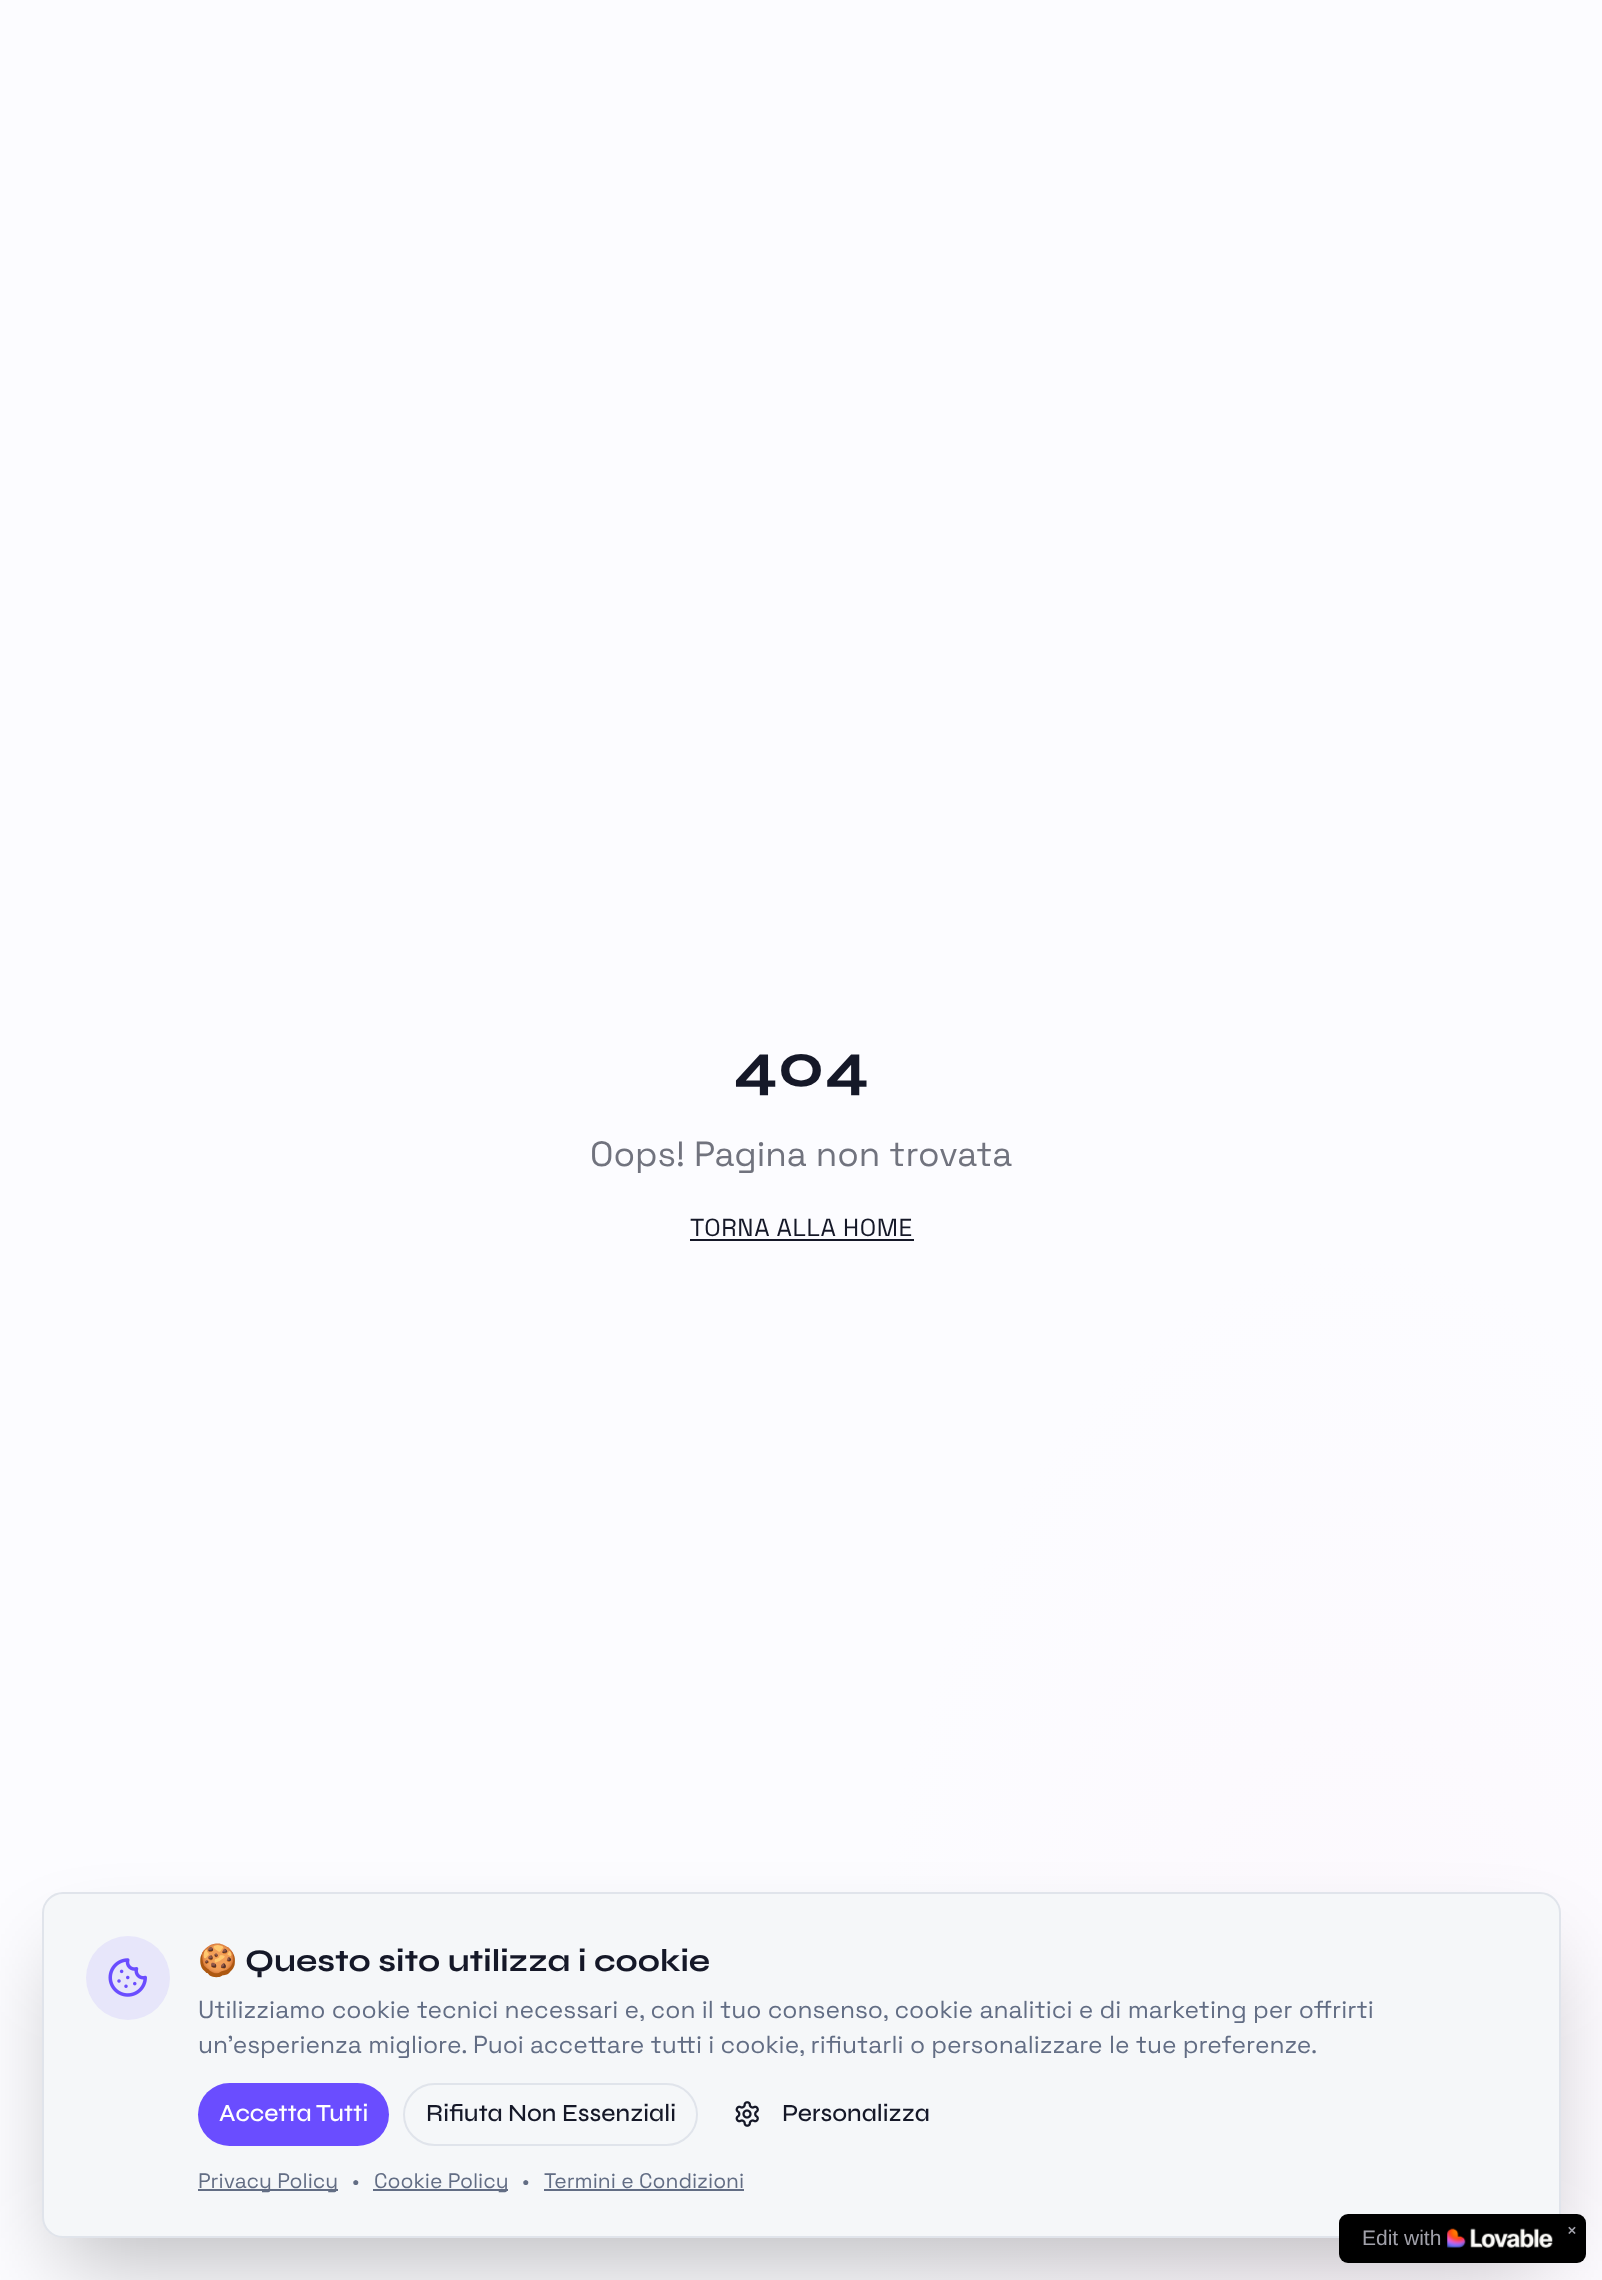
async function draw(canvas) {
  canvas.width = 1602;
  canvas.height = 2280;
  const ctx = canvas.getContext('2d');
  ctx.miterLimit = 4;
  ctx.fontKerning = 'normal';
  function label(s, x, y, font, color) {
    ctx.font = font;
    ctx.fillStyle = color;
    ctx.fillText(s, x, y);
  }
  function rect(x, y, w, h, color) {
    ctx.fillStyle = color;
    ctx.fillRect(x, y, w, h);
  }
  function roundedRect(x, y, w, h, r, color) {
    ctx.fillStyle = color;
    ctx.beginPath();
    ctx.roundRect(x, y, w, h, r);
    ctx.fill();
  }
  async function image(src, x, y, w, h) {
    const img = new Image();
    img.src = src;
    await img.decode();
    ctx.drawImage(img, x, y, w, h);
  }
  let gradient;

  rect(0, 0, 1602, 2280, '#fff');
  gradient = ctx.createRadialGradient(1363, 1217.9, 0, 1363, 1217.9, 1282);
  gradient.addColorStop(0, '#fcf8fd');
  gradient.addColorStop(0.4, '#fcfcff');
  ctx.fillStyle = gradient;
  ctx.beginPath();
  ctx.rect(0, 0, 1602, 2280);
  ctx.save();
  ctx.clip();
  ctx.scale(1, 2280 / 1282);
  ctx.fillRect(0, 0, 1602, 1282);
  ctx.restore();
  label('404', 733, 1086, 'bold 63px Syne', '#151828');
  label('Oops! Pagina non trovata', 590, 1166, '35px Space Grotesk', '#71737e');
  ctx.letterSpacing = '0.6px';
  label('TORNA ALLA HOME', 690, 1236, '24.5px Space Grotesk', '#151828');
  rect(690, 1239, 224, 2, '#151828');
  ctx.fillStyle = '#00000040';
  ctx.filter = 'blur(44px)';
  ctx.beginPath();
  ctx.rect(63, 1957, 1477, 304);
  ctx.fill();
  ctx.filter = 'none';
  ctx.fillStyle = '#f5f7f9';
  ctx.beginPath();
  ctx.roundRect(43, 1893, 1517, 344, 20);
  ctx.fill();
  ctx.strokeStyle = '#e0e4eb';
  ctx.lineWidth = 2;
  ctx.stroke();
  ctx.fillStyle = '#e7e6fa';
  ctx.beginPath();
  ctx.arc(128, 1978, 42, 0, 2 * Math.PI);
  ctx.fill();
  await image('assets/img1.png', 108, 1958, 39, 39);
  ctx.letterSpacing = '0px';
  label('🍪', 198, 1971, 'bold 31.5px Noto Color Emoji', '#151828');
  label('Questo sito utilizza i cookie', 245, 1971, 'bold 31.5px Syne', '#151828');
  label('Utilizziamo cookie tecnici necessari e, con il tuo consenso, cookie analitici e di marketing per offrirti', 198, 2018, '24.5px Space Grotesk', '#626d84');
  label('un\'esperienza migliore. Puoi accettare tutti i cookie, rifiutarli o personalizzare le tue preferenze.', 198, 2053, '24.5px Space Grotesk', '#626d84');
  roundedRect(198, 2083, 191, 63, 31.5, '#6a4dff');
  label('Accetta Tutti', 219, 2121, '500 24.5px Syne', '#fff');
  ctx.beginPath();
  ctx.roundRect(404, 2084, 293, 61, 30.5);
  ctx.stroke();
  label('Rifiuta Non Essenziali', 426, 2121, '500 24.5px Syne', '#151828');
  await image('assets/img2.png', 735, 2101, 24, 26);
  label('Personalizza', 782, 2121, '500 24.5px Syne', '#151828');
  rect(198, 2189, 140, 2, '#626d84');
  label('Privacy Policy', 198, 2188, '21px Space Grotesk', '#626d84');
  label('•', 352, 2188, '21px Space Grotesk', '#626d84');
  rect(373, 2189, 135, 2, '#626d84');
  label('Cookie Policy', 374, 2188, '21px Space Grotesk', '#626d84');
  label('•', 522, 2188, '21px Space Grotesk', '#626d84');
  label('Termini e Condizioni', 544, 2188, '21px Space Grotesk', '#626d84');
  rect(544, 2189, 200, 2, '#626d84');
  roundedRect(1339, 2214, 247, 49, 9, '#000');
  label('Edit with', 1362, 2245, '21px Liberation Sans', '#a1a1aa');
  await image('assets/img3.png', 1447, 2228, 106, 20);
  label('×', 1567, 2237, '24.5px Syne', '#a1a1aa');
}

draw(document.querySelector('canvas'));
